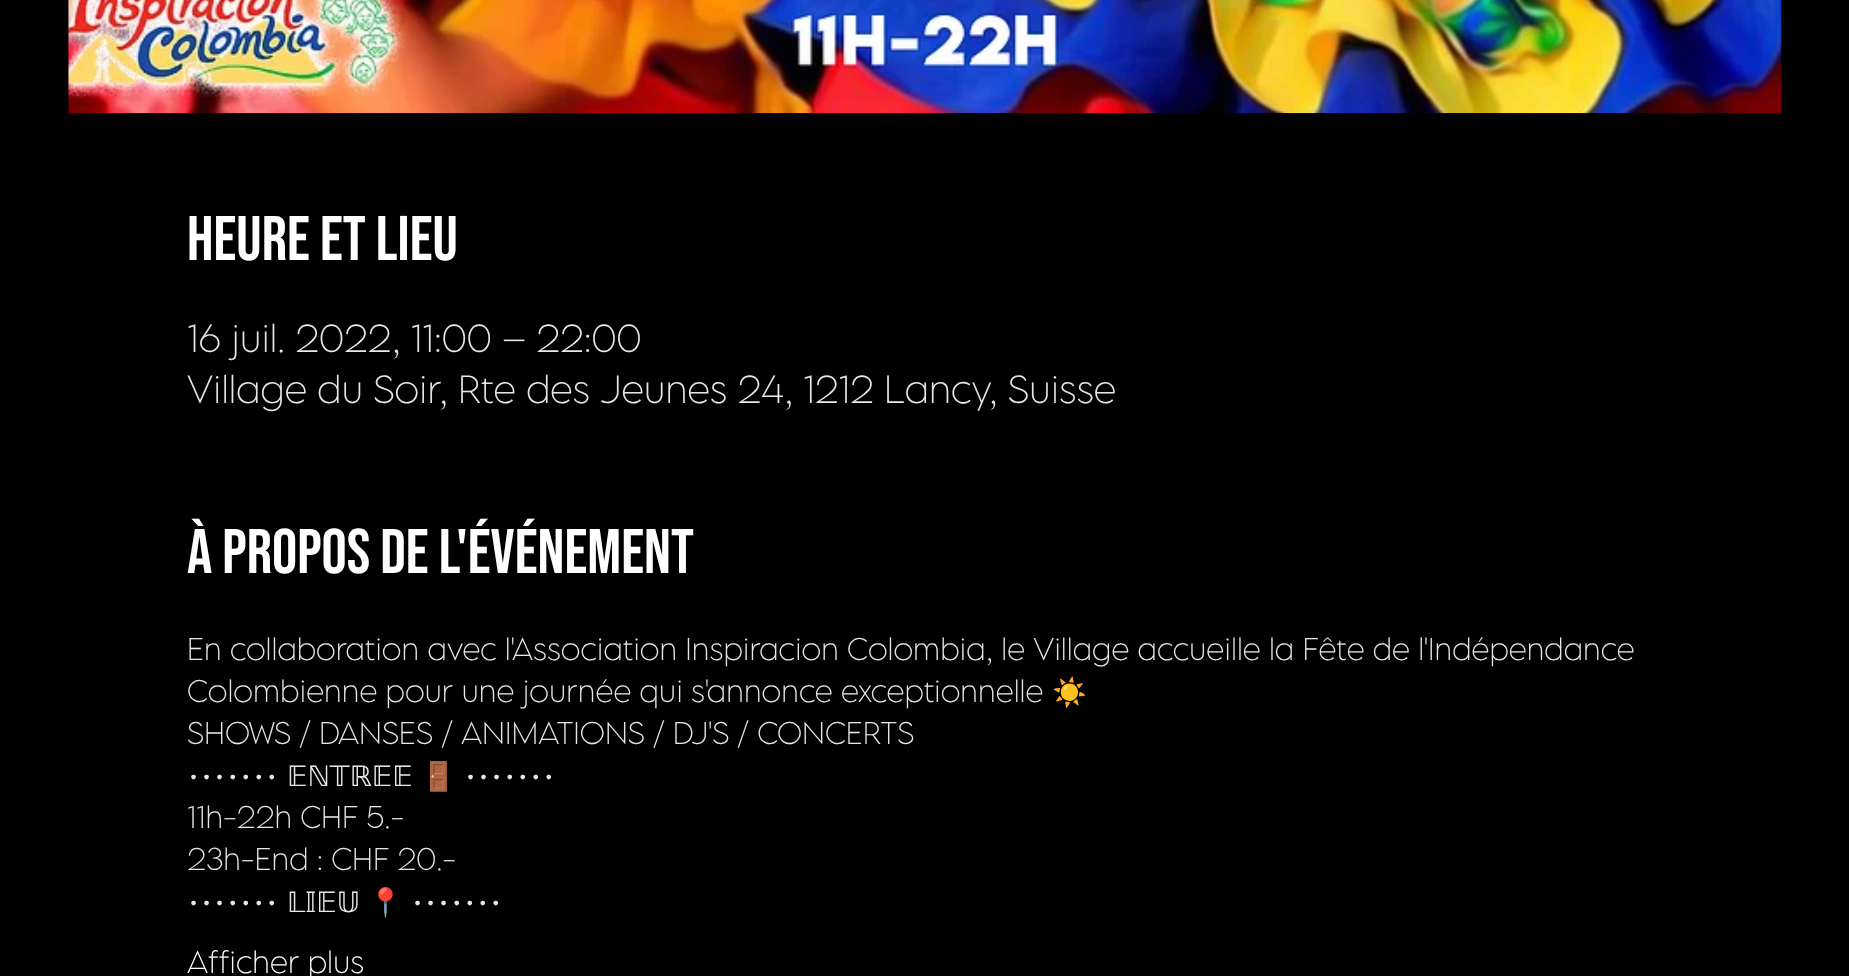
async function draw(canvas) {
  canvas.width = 1849;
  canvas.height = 976;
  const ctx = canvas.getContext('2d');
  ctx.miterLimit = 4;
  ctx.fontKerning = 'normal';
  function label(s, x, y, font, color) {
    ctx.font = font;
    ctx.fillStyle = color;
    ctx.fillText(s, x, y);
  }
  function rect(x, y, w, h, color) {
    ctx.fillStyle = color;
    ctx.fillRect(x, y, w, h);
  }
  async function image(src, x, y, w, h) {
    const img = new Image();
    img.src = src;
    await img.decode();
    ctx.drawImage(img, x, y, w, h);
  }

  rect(0, 0, 1849, 976, '#000');
  await image('assets/img1.png', 68, 0, 1714, 114);
  label('Heure et lieu', 187, 260, '63px Bebas Neue', '#fff');
  label('16 juil. 2022, 11:00 – 22:00', 187, 352, '200 35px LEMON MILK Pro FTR', '#e8e6e6');
  label('Village du Soir, Rte des Jeunes 24, 1212 Lancy, Suisse', 187, 403, '200 35px LEMON MILK Pro FTR', '#e8e6e6');
  label('À propos de l\'événement', 187, 573, '63px Bebas Neue', '#fff');
  label('En collaboration avec l\'Association Inspiracion Colombia, le Village accueille la Fête de l\'Indépendance', 187, 660, '200 28px LEMON MILK Pro FTR', '#e8e6e6');
  label('Colombienne pour une journée qui s\'annonce exceptionnelle', 187, 702, '200 28px LEMON MILK Pro FTR', '#e8e6e6');
  label('☀️', 1052, 702, '28px Noto Color Emoji', '#e8e6e6');
  label('SHOWS / DANSES / ANIMATIONS / DJ\'S / CONCERTS', 187, 744, '200 28px LEMON MILK Pro FTR', '#e8e6e6');
  label('•••••••', 187, 786, '200 28px LEMON MILK Pro FTR', '#e8e6e6');
  label('𝔼ℕ𝕋ℝ𝔼𝔼', 287, 786, '28px DejaVu Sans', '#e8e6e6');
  label('🚪', 421, 786, '28px Noto Color Emoji', '#e8e6e6');
  label('•••••••', 464, 786, '200 28px LEMON MILK Pro FTR', '#e8e6e6');
  label('11h-22h CHF 5.-', 187, 828, '200 28px LEMON MILK Pro FTR', '#e8e6e6');
  label('23h-End : CHF 20.-', 187, 870, '200 28px LEMON MILK Pro FTR', '#e8e6e6');
  label('•••••••', 187, 912, '200 28px LEMON MILK Pro FTR', '#e8e6e6');
  label('𝕃𝕀𝔼𝕌', 287, 912, '28px DejaVu Sans', '#e8e6e6');
  label('📍', 368, 912, '28px Noto Color Emoji', '#e8e6e6');
  label('•••••••', 411, 912, '200 28px LEMON MILK Pro FTR', '#e8e6e6');
  label('Afficher plus', 187, 973, '200 28px LEMON MILK Pro FTR', '#fff');
}

draw(document.querySelector('canvas'));
